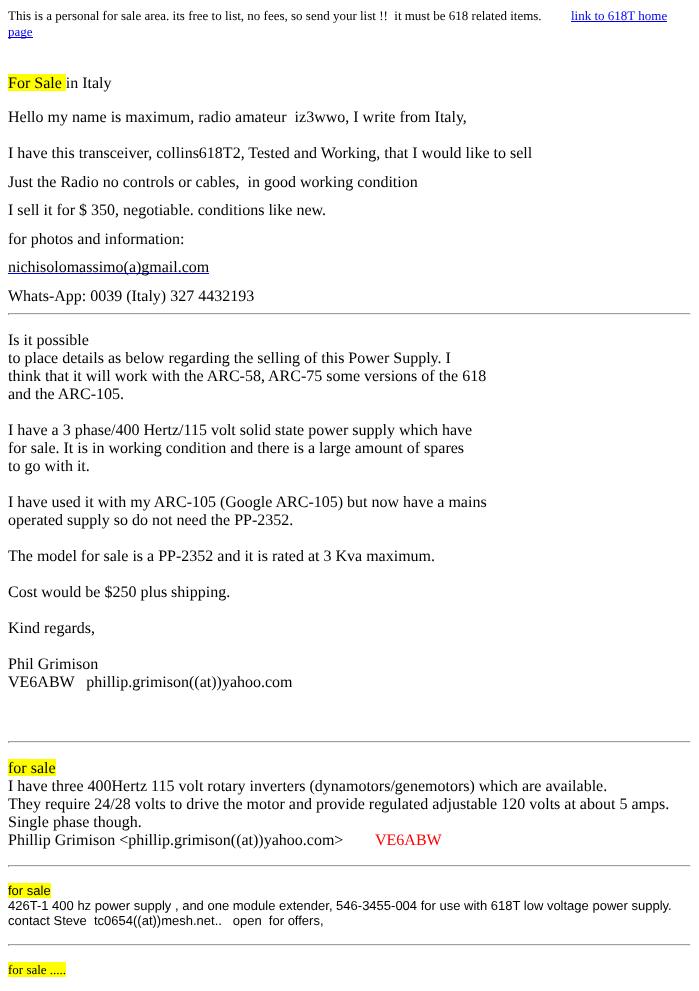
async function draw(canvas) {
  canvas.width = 699;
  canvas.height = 991;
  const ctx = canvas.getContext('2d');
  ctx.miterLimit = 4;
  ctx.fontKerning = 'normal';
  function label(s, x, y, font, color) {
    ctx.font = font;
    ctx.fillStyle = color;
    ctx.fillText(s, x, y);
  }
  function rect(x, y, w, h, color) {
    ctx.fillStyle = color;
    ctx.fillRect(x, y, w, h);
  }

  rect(0, 0, 699, 991, '#fff');
  label('This is a personal for sale area. its free to list, no fees, so send your list !!  it must be 618 related items.', 8, 20, '13px Liberation Serif', '#000');
  label('link to 618T home', 571, 20, '13px Liberation Serif', '#00e');
  rect(571, 21, 96, 1, '#00e');
  rect(8, 37, 25, 1, '#00e');
  label('page', 8, 36, '13px Liberation Serif', '#00e');
  rect(8, 74, 58, 17, '#ff0');
  label('For Sale in Italy', 8, 88, '16px Liberation Serif', '#000');
  label('Hello my name is maximum, radio amateur  iz3wwo, I write from Italy,', 8, 122, '16px Liberation Serif', '#000');
  label('I have this transceiver, collins618T2, Tested and Working, that I would like to sell', 8, 158, '16px Liberation Serif', '#000');
  label('Just the Radio no controls or cables,  in good working condition', 8, 187, '16px Liberation Serif', '#000');
  label('I sell it for $ 350, negotiable. conditions like new.', 8, 215, '16px Liberation Serif', '#000');
  label('for photos and information:', 8, 244, '16px Liberation Serif', '#000');
  rect(8, 273, 201, 1, '#00e');
  label('nichisolomassimo(a)gmail.com', 8, 272, '16px Liberation Serif', '#000');
  label('Whats-App: 0039 (Italy) 327 4432193', 8, 301, '16px Liberation Serif', '#000');
  rect(8, 313, 683, 1, '#9f9f9f');
  rect(690, 313, 1, 2, '#eee');
  rect(8, 314, 683, 1, '#eee');
  rect(8, 313, 1, 2, '#9f9f9f');
  label('Is it possible', 8, 345, '16px Liberation Serif', '#000');
  label('to place details as below regarding the selling of this Power Supply. I', 8, 363, '16px Liberation Serif', '#000');
  label('think that it will work with the ARC-58, ARC-75 some versions of the 618', 8, 381, '16px Liberation Serif', '#000');
  label('and the ARC-105.', 8, 399, '16px Liberation Serif', '#000');
  label('I have a 3 phase/400 Hertz/115 volt solid state power supply which have', 8, 435, '16px Liberation Serif', '#000');
  label('for sale. It is in working condition and there is a large amount of spares', 8, 453, '16px Liberation Serif', '#000');
  label('to go with it.', 8, 471, '16px Liberation Serif', '#000');
  label('I have used it with my ARC-105 (Google ARC-105) but now have a mains', 8, 507, '16px Liberation Serif', '#000');
  label('operated supply so do not need the PP-2352.', 8, 525, '16px Liberation Serif', '#000');
  label('The model for sale is a PP-2352 and it is rated at 3 Kva maximum.', 8, 561, '16px Liberation Serif', '#000');
  label('Cost would be $250 plus shipping.', 8, 597, '16px Liberation Serif', '#000');
  label('Kind regards,', 8, 633, '16px Liberation Serif', '#000');
  label('Phil Grimison', 8, 669, '16px Liberation Serif', '#000');
  label('VE6ABW   phillip.grimison((at))yahoo.com', 8, 687, '16px Liberation Serif', '#000');
  rect(8, 741, 683, 1, '#9f9f9f');
  rect(690, 741, 1, 2, '#eee');
  rect(8, 742, 683, 1, '#eee');
  rect(8, 741, 1, 2, '#9f9f9f');
  rect(8, 759, 48, 17, '#ff0');
  label('for sale', 8, 773, '16px Liberation Serif', '#000');
  label('I have three 400Hertz 115 volt rotary inverters (dynamotors/genemotors) which are available.', 8, 791, '16px Liberation Serif', '#000');
  label('They require 24/28 volts to drive the motor and provide regulated adjustable 120 volts at about 5 amps.', 8, 809, '16px Liberation Serif', '#000');
  label('Single phase though.', 8, 827, '16px Liberation Serif', '#000');
  label('Phillip Grimison <phillip.grimison((at))yahoo.com>', 8, 845, '16px Liberation Serif', '#000');
  label('VE6ABW', 375, 845, '16px Liberation Serif', '#f00');
  rect(8, 865, 683, 1, '#9f9f9f');
  rect(690, 865, 1, 2, '#eee');
  rect(8, 866, 683, 1, '#eee');
  rect(8, 865, 1, 2, '#9f9f9f');
  rect(8, 883, 43, 15, '#ff0');
  label('for sale', 8, 895, '13px Liberation Sans', '#000');
  label('426T-1 400 hz power supply , and one module extender, 546-3455-004 for use with 618T low voltage power supply.', 8, 910, '13px Liberation Sans', '#000');
  label('contact Steve  tc0654((at))mesh.net..   open  for offers,', 8, 925, '13px Liberation Sans', '#000');
  rect(8, 944, 683, 1, '#9f9f9f');
  rect(690, 944, 1, 2, '#eee');
  rect(8, 945, 683, 1, '#eee');
  rect(8, 944, 1, 2, '#9f9f9f');
  rect(8, 962, 58, 15, '#ff0');
  label('for sale .....', 8, 974, '13px Liberation Serif', '#000');
}

draw(document.querySelector('canvas'));
